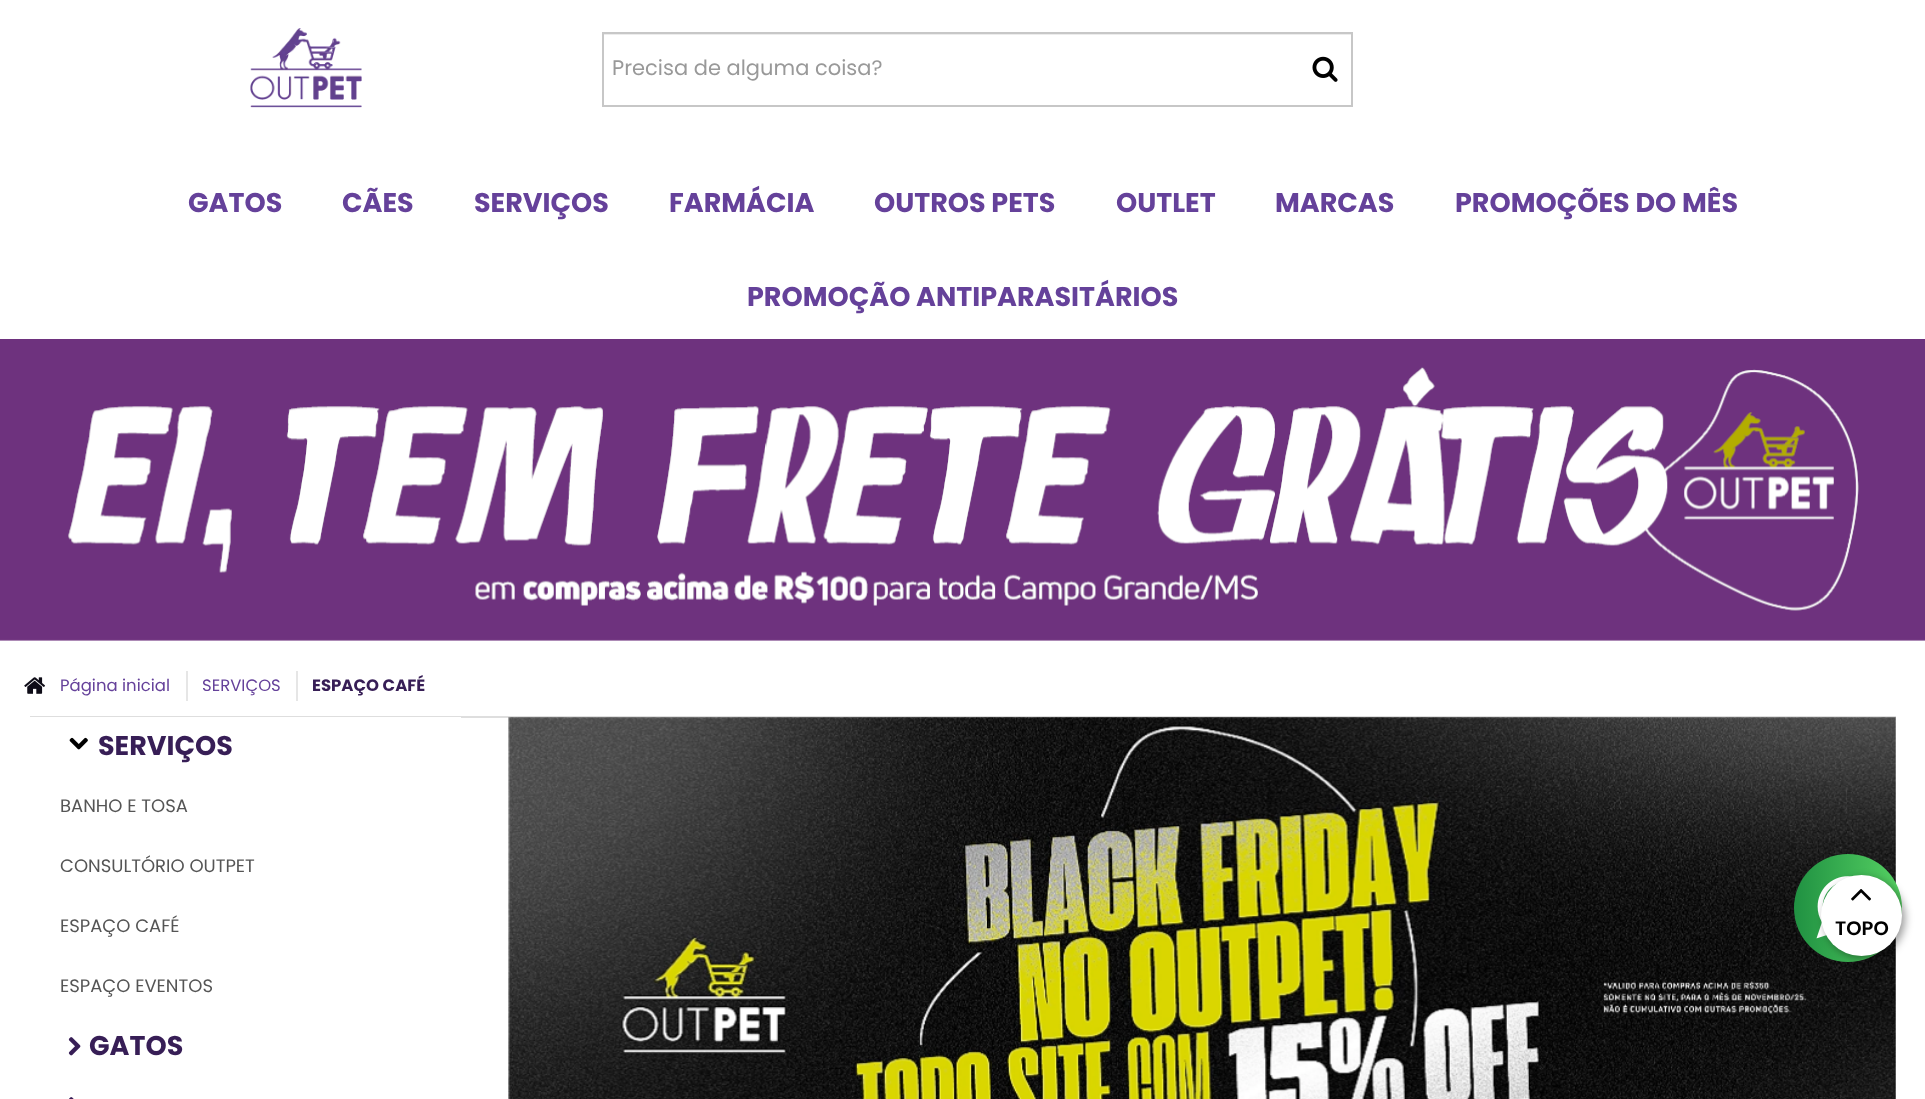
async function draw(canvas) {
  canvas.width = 1925;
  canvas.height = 1099;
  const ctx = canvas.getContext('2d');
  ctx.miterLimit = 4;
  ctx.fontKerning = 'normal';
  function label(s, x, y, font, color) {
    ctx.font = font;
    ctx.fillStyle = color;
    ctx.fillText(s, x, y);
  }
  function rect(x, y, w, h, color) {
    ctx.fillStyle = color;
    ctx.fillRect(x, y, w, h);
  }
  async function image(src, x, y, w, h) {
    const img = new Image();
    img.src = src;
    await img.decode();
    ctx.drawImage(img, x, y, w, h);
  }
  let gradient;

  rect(0, 0, 1925, 1099, '#fff');
  await image('assets/img1.png', 250, 28, 112, 80);
  rect(603, 34, 749, 1, '#ececec');
  ctx.strokeStyle = '#c7c7c7';
  ctx.lineWidth = 2;
  ctx.strokeRect(603, 33, 749, 73);
  label('Precisa de alguma coisa?', 612, 75, '21px Poppins', '#999');
  await image('assets/img2.png', 1312, 56, 26, 26);
  label('GATOS', 188, 212, 'bold 27px Poppins', '#65419a');
  label('CÃES', 342, 212, 'bold 27px Poppins', '#65419a');
  label('SERVIÇOS', 474, 212, 'bold 27px Poppins', '#65419a');
  label('FARMÁCIA', 669, 212, 'bold 27px Poppins', '#65419a');
  label('OUTROS PETS', 874, 212, 'bold 27px Poppins', '#65419a');
  label('OUTLET', 1116, 212, 'bold 27px Poppins', '#65419a');
  label('MARCAS', 1275, 212, 'bold 27px Poppins', '#65419a');
  label('PROMOÇÕES DO MÊS', 1455, 212, 'bold 27px Poppins', '#65419a');
  label('PROMOÇÃO ANTIPARASITÁRIOS', 747, 306, 'bold 27px Poppins', '#65419a');
  await image('assets/img3.png', 0, 339, 1925, 302);
  rect(30, 716, 1866, 2, '#dedede');
  await image('assets/img4.png', 24, 677, 21, 17);
  label('Página inicial', 60, 691, '16.5px Poppins', '#65419a');
  rect(186, 671, 2, 30, '#e6e6e6');
  label('SERVIÇOS', 202, 691, '16.5px Poppins', '#65419a');
  rect(296, 671, 2, 30, '#e6e6e6');
  label('ESPAÇO CAFÉ', 312, 691, 'bold 16.5px Poppins', '#371e56');
  rect(30, 717, 431, 1, '#fff');
  await image('assets/img5.png', 69, 737, 19, 13);
  label('SERVIÇOS', 98, 755, 'bold 27px Poppins', '#371e56');
  label('BANHO E TOSA', 60, 812, '18px Poppins', '#555');
  label('CONSULTÓRIO OUTPET', 60, 872, '18px Poppins', '#555');
  label('ESPAÇO CAFÉ', 60, 932, '18px Poppins', '#555');
  label('ESPAÇO EVENTOS', 60, 992, '18px Poppins', '#555');
  await image('assets/img6.png', 68, 1037, 13, 19);
  label('GATOS', 89, 1055, 'bold 27px Poppins', '#371e56');
  await image('assets/img7.png', 69, 1097, 5, 2);
  await image('assets/img8.png', 508, 717, 1388, 382);
  gradient = ctx.createLinearGradient(1794, 908, 1902, 908);
  gradient.addColorStop(0, '#209142');
  gradient.addColorStop(1, '#56d263');
  ctx.fillStyle = gradient;
  ctx.beginPath();
  ctx.arc(1848, 908, 54, 0, 2 * Math.PI);
  ctx.fill();
  await image('assets/img9.png', 1816, 876, 37, 63);
  ctx.fillStyle = '#00000066';
  ctx.filter = 'blur(4.5px)';
  ctx.beginPath();
  ctx.roundRect(1824, 878, 81, 81, 40.5);
  ctx.fill();
  ctx.filter = 'none';
  ctx.fillStyle = '#fff';
  ctx.beginPath();
  ctx.arc(1861.5, 915.5, 40.5, 0, 2 * Math.PI);
  ctx.fill();
  await image('assets/img10.png', 1851, 889, 20, 12);
  label('TOPO', 1835, 935, '600 19.5px Poppins', '#000');
}

draw(document.querySelector('canvas'));
